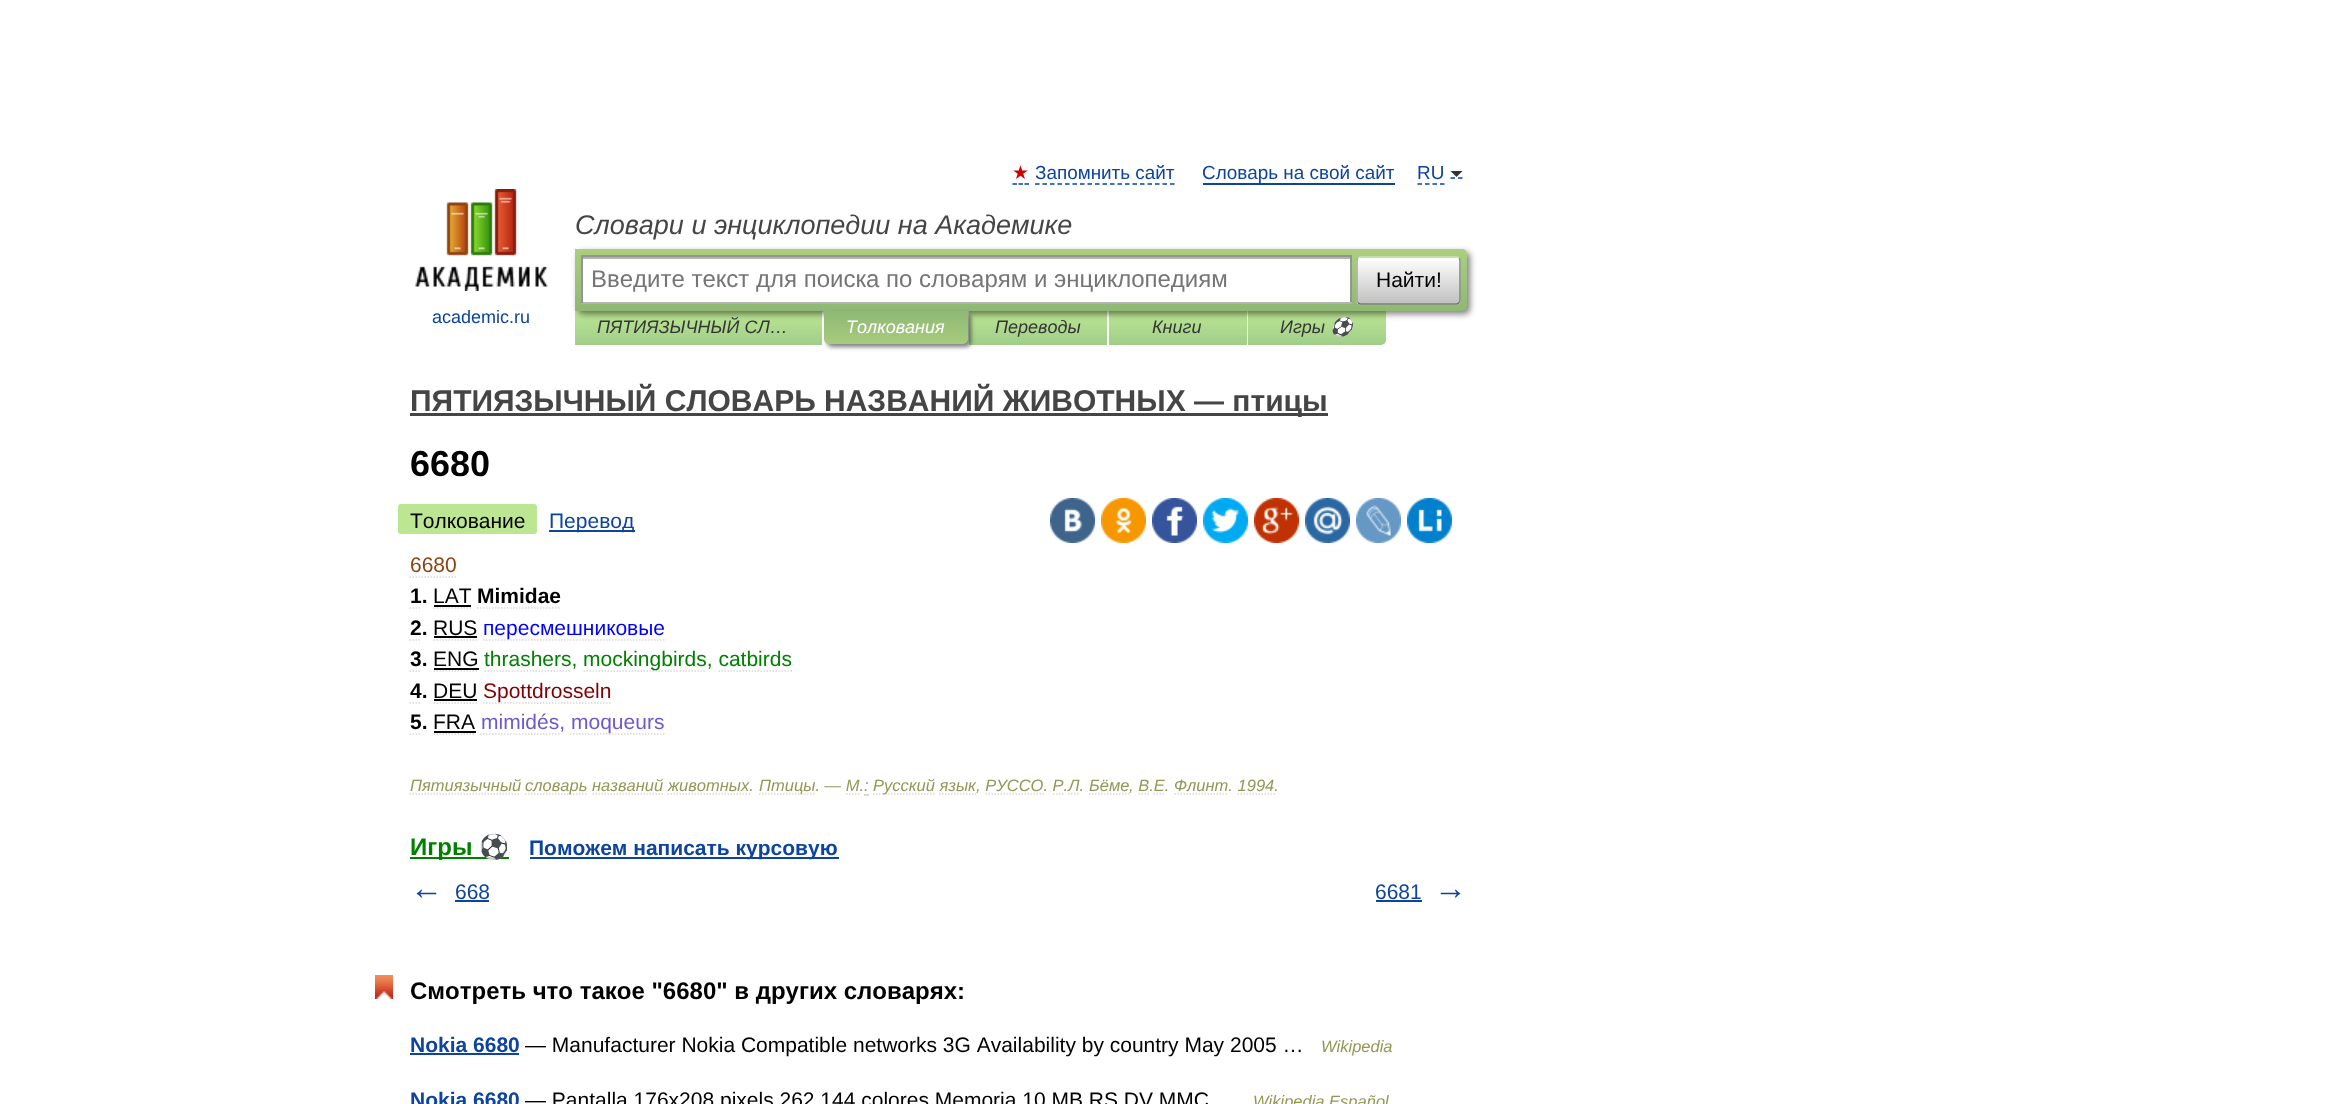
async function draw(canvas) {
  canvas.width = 2349;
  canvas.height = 1104;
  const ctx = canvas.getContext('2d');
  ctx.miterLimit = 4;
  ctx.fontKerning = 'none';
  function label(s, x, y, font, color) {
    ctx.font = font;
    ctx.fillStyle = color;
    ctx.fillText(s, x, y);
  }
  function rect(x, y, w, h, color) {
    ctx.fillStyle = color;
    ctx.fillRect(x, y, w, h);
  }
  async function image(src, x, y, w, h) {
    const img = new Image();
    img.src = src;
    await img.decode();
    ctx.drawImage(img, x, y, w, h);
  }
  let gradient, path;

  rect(0, 0, 2349, 1104, '#fff');
  label('★', 1012, 179, '18.9px DejaVu Sans', '#c00');
  path = new Path2D('M1012.5 184H1017M1018.5 184H1023M1024.5 184H1029');
  ctx.strokeStyle = '#04a';
  ctx.lineWidth = 1.5;
  ctx.stroke(path);
  label('Запомнить сайт', 1035, 179, '18.9px Liberation Sans', '#0d44a0');
  path = new Path2D('M1035 184H1174.5');
  ctx.setLineDash([4.5, 3]);
  ctx.stroke(path);
  label('Словарь на свой сайт', 1202, 179, '18.9px Liberation Sans', '#0d44a0');
  rect(1203, 183, 192, 2, '#0d44a0');
  path = new Path2D('M1417.5 184H1444.5');
  ctx.stroke(path);
  path = new Path2D('M1450.5 178H1455M1458 178H1462.5');
  ctx.setLineDash([]);
  ctx.stroke(path);
  label('RU', 1417, 179, '18.9px Liberation Sans', '#0d44a0');
  ctx.fillStyle = '#333';
  path = new Path2D('M1450.5 171H1462.5L1456.5 177Z');
  ctx.fill(path);
  label('Словари и энциклопедии на Академике', 575, 234, 'italic 27px Liberation Sans', '#454545');
  gradient = ctx.createLinearGradient(698, 311, 698, 345);
  gradient.addColorStop(0, '#bde693');
  gradient.addColorStop(1, '#a0ce8a');
  ctx.fillStyle = gradient;
  ctx.fillRect(575, 311, 247, 34);
  gradient = ctx.createLinearGradient(1038, 311, 1038, 345);
  gradient.addColorStop(0, '#bde693');
  gradient.addColorStop(1, '#a0ce8a');
  ctx.fillStyle = gradient;
  ctx.fillRect(969, 311, 138, 34);
  gradient = ctx.createLinearGradient(1178, 311, 1178, 345);
  gradient.addColorStop(0, '#bde693');
  gradient.addColorStop(1, '#a0ce8a');
  ctx.fillStyle = gradient;
  ctx.fillRect(1109, 311, 138, 34);
  gradient = ctx.createLinearGradient(1317, 311, 1317, 345);
  gradient.addColorStop(0, '#bde693');
  gradient.addColorStop(1, '#a0ce8a');
  ctx.fillStyle = gradient;
  ctx.beginPath();
  ctx.roundRect(1248, 311, 138, 34, [0, 0, 5, 0]);
  ctx.fill();
  ctx.fillStyle = '#00000080';
  ctx.filter = 'blur(3px)';
  ctx.beginPath();
  ctx.roundRect(578, 252, 892, 62, 5);
  ctx.fill();
  ctx.filter = 'none';
  gradient = ctx.createLinearGradient(1021, 249, 1021, 311);
  gradient.addColorStop(0, '#abcf7e');
  gradient.addColorStop(1, '#8eb874');
  ctx.fillStyle = gradient;
  ctx.beginPath();
  ctx.roundRect(575, 249, 892, 62, [0, 5, 5, 0]);
  ctx.fill();
  rect(583, 259, 767, 43, '#fff');
  rect(582, 257, 768, 2, '#b3b3b3');
  rect(581, 255, 771, 2, '#949494');
  rect(1350, 255, 2, 48, '#949494');
  rect(581, 302, 771, 2, '#b4b4b4');
  rect(581, 255, 2, 48, '#949494');
  label('Введите текст для поиска по словарям и энциклопедиям', 591, 287, '24px Liberation Sans', '#757575');
  ctx.save();
  ctx.beginPath();
  ctx.roundRect(1356, 257, 105, 48, 5);
  ctx.clip();
  gradient = ctx.createLinearGradient(1409, 258, 1409, 303);
  gradient.addColorStop(0, '#fff');
  gradient.addColorStop(1, '#c1c1c1');
  ctx.fillStyle = gradient;
  ctx.fillRect(1356, 258, 105, 45);
  gradient = ctx.createLinearGradient(1409, 303, 1409, 348);
  gradient.addColorStop(0, '#fff');
  gradient.addColorStop(1, '#c1c1c1');
  ctx.fillStyle = gradient;
  ctx.fillRect(1356, 303, 105, 2);
  ctx.restore();
  path = new Path2D('M1358 258.5C1358.5 257.5 1359.5 257 1360.5 257H1456.5C1457.5 257 1458.5 257.5 1459 258.5');
  ctx.strokeStyle = '#d1e4bc';
  ctx.stroke(path);
  path = new Path2D('M1459 258.5C1460 259 1460 260 1460 261V300C1460 301 1460 302 1459 302.5');
  ctx.strokeStyle = '#7a8e69';
  ctx.stroke(path);
  path = new Path2D('M1459 302.5C1458.5 303.5 1457.5 304 1456.5 304H1360.5C1359.5 304 1358.5 303.5 1358 302.5');
  ctx.strokeStyle = '#5d7250';
  ctx.stroke(path);
  path = new Path2D('M1358 302.5C1357 302 1357 301 1357 300V261C1357 260 1357 259 1358 258.5');
  ctx.strokeStyle = '#9aae89';
  ctx.stroke(path);
  label('Найти!', 1376, 287, '21px Liberation Sans', '#000');
  await image('assets/img1.png', 415, 189, 133, 102);
  label('academic.ru', 432, 323, '18px Liberation Sans', '#0d44a0');
  label('ПЯТИЯЗЫЧНЫЙ СЛ…', 597, 333, 'italic 18px Liberation Sans', '#353535');
  ctx.fillStyle = '#00000080';
  ctx.filter = 'blur(2px)';
  ctx.beginPath();
  ctx.roundRect(827, 314, 144, 33, 5);
  ctx.fill();
  ctx.filter = 'none';
  gradient = ctx.createLinearGradient(896, 311, 896, 344);
  gradient.addColorStop(0, '#8fb875');
  gradient.addColorStop(1, '#a7cc7d');
  ctx.fillStyle = gradient;
  ctx.beginPath();
  ctx.roundRect(824, 311, 144, 33, [0, 0, 5, 5]);
  ctx.fill();
  label('Толкования', 846, 333, 'italic 18px Liberation Sans', '#fff');
  label('Переводы', 995, 333, 'italic 18px Liberation Sans', '#353535');
  label('Книги', 1152, 333, 'italic 18px Liberation Sans', '#353535');
  label('Игры', 1280, 333, 'italic 18px Liberation Sans', '#353535');
  label('⚽', 1330, 333, 'italic 18px Noto Color Emoji', '#353535');
  rect(410, 413, 918, 3, '#454545');
  label('ПЯТИЯЗЫЧНЫЙ СЛОВАРЬ НАЗВАНИЙ ЖИВОТНЫХ — птицы', 410, 411, 'bold 30px Liberation Sans', '#454545');
  label('6680', 410, 476, 'bold 36px Liberation Sans', '#000');
  ctx.fillStyle = '#bde693';
  ctx.beginPath();
  ctx.roundRect(398, 504, 12, 30, [3, 0, 0, 3]);
  ctx.fill();
  ctx.beginPath();
  ctx.roundRect(410, 504, 127, 30, [0, 3, 3, 0]);
  ctx.fill();
  label('Толкование', 410, 528, '21px Liberation Sans', '#000');
  rect(549, 530, 86, 2, '#0d44a0');
  label('Перевод', 549, 528, '21px Liberation Sans', '#0d44a0');
  await image('assets/img2.png', 1050, 498, 45, 45);
  await image('assets/img3.png', 1101, 498, 45, 45);
  await image('assets/img4.png', 1152, 498, 45, 45);
  await image('assets/img5.png', 1203, 498, 45, 45);
  await image('assets/img6.png', 1254, 498, 45, 45);
  await image('assets/img7.png', 1305, 498, 45, 45);
  await image('assets/img8.png', 1356, 498, 45, 45);
  await image('assets/img9.png', 1407, 498, 45, 45);
  label('6680', 410, 572, '21px Liberation Sans', '#8b4513');
  path = new Path2D('M409.5 577H456');
  ctx.strokeStyle = '#d9d9d9';
  ctx.setLineDash([1.5, 1.5]);
  ctx.stroke(path);
  label('1.', 410, 603, 'bold 21px Liberation Sans', '#000');
  path = new Path2D('M409.5 608H421.5');
  ctx.stroke(path);
  label('LAT', 433, 603, '21px Liberation Sans', '#000');
  path = new Path2D('M433.5 608H471');
  ctx.stroke(path);
  rect(434, 605, 37, 2, '#000');
  label('Mimidae', 477, 603, 'bold 21px Liberation Sans', '#000');
  path = new Path2D('M477 608H561');
  ctx.stroke(path);
  label('2.', 410, 635, 'bold 21px Liberation Sans', '#000');
  path = new Path2D('M409.5 640H421.5');
  ctx.stroke(path);
  label('RUS', 433, 635, '21px Liberation Sans', '#000');
  path = new Path2D('M433.5 640H477');
  ctx.stroke(path);
  rect(434, 636, 43, 2, '#000');
  path = new Path2D('M483 640H664.5');
  ctx.stroke(path);
  label('пересмешниковые', 483, 635, '21px Liberation Sans', '#00f');
  label('3.', 410, 666, 'bold 21px Liberation Sans', '#000');
  path = new Path2D('M409.5 671H421.5');
  ctx.stroke(path);
  label('ENG', 433, 666, '21px Liberation Sans', '#000');
  path = new Path2D('M433.5 671H478.5');
  ctx.stroke(path);
  rect(434, 668, 45, 2, '#000');
  label('thrashers,', 484, 666, '21px Liberation Sans', '#008000');
  path = new Path2D('M484.5 671H571.5');
  ctx.stroke(path);
  path = new Path2D('M583.5 671H706.5');
  ctx.stroke(path);
  label('mockingbirds, catbirds', 583, 666, '21px Liberation Sans', '#008000');
  path = new Path2D('M718.5 671H792');
  ctx.stroke(path);
  label('4.', 410, 698, 'bold 21px Liberation Sans', '#000');
  path = new Path2D('M409.5 703H421.5');
  ctx.stroke(path);
  label('DEU', 433, 698, '21px Liberation Sans', '#000');
  path = new Path2D('M433.5 703H477');
  ctx.stroke(path);
  rect(434, 699, 43, 2, '#000');
  path = new Path2D('M483 703H612');
  ctx.stroke(path);
  label('Spottdrosseln', 483, 698, '21px Liberation Sans', '#800000');
  label('5.', 410, 729, 'bold 21px Liberation Sans', '#000');
  path = new Path2D('M409.5 734H421.5');
  ctx.stroke(path);
  label('FRA', 433, 729, '21px Liberation Sans', '#000');
  path = new Path2D('M433.5 734H475.5');
  ctx.stroke(path);
  rect(434, 731, 42, 2, '#000');
  label('mimidés,', 481, 729, '21px Liberation Sans', '#6a5acd');
  path = new Path2D('M480 734H559.5');
  ctx.stroke(path);
  path = new Path2D('M570 734H664.5');
  ctx.stroke(path);
  label('moqueurs', 571, 729, '21px Liberation Sans', '#6a5acd');
  label('Пятиязычный', 410, 791, 'italic 16.5px Liberation Sans', '#939756');
  path = new Path2D('M409.5 794H520.5');
  ctx.stroke(path);
  path = new Path2D('M525 794H588');
  ctx.stroke(path);
  label('словарь названий животных.', 525, 791, 'italic 16.5px Liberation Sans', '#939756');
  path = new Path2D('M592.5 794H663');
  ctx.stroke(path);
  path = new Path2D('M667.5 794H750');
  ctx.stroke(path);
  path = new Path2D('M759 794H816');
  ctx.stroke(path);
  label('Птицы. — М.:', 759, 791, 'italic 16.5px Liberation Sans', '#939756');
  path = new Path2D('M846 794H859.5');
  ctx.stroke(path);
  rect(864, 794, 5, 2, '#d9d9d9');
  path = new Path2D('M873 794H934.5');
  ctx.stroke(path);
  label('Русский язык', 873, 791, 'italic 16.5px Liberation Sans', '#939756');
  path = new Path2D('M939 794H976.5');
  ctx.stroke(path);
  label(', РУССО. Р.Л.', 976, 791, 'italic 16.5px Liberation Sans', '#939756');
  label('Бёме', 1089, 791, 'italic 16.5px Liberation Sans', '#939756');
  path = new Path2D('M985.5 794H1044');
  ctx.stroke(path);
  path = new Path2D('M1053 794H1054.5M1056 794H1057.5M1059 794H1060.5M1062 794H1063.5');
  ctx.setLineDash([]);
  ctx.stroke(path);
  path = new Path2D('M1068 794H1080M1089 794H1129.5');
  ctx.setLineDash([1.5, 1.5]);
  ctx.stroke(path);
  label(', В.Е. Флинт. 1994.', 1129, 791, 'italic 16.5px Liberation Sans', '#939756');
  path = new Path2D('M1138.5 794H1140M1141.5 794H1143M1144.5 794H1146M1147.5 794H1149');
  ctx.setLineDash([]);
  ctx.stroke(path);
  path = new Path2D('M1153.5 794H1165.5');
  ctx.setLineDash([1.5, 1.5]);
  ctx.stroke(path);
  path = new Path2D('M1174.5 794H1228.5');
  ctx.stroke(path);
  path = new Path2D('M1237.5 794H1275');
  ctx.stroke(path);
  rect(410, 857, 99, 2, '#008000');
  label('Игры', 410, 855, 'bold 24px Liberation Sans', '#008000');
  label('⚽', 479, 855, 'bold 24px Noto Color Emoji', '#008000');
  rect(530, 857, 309, 2, '#0d44a0');
  label('Поможем написать курсовую', 529, 855, 'bold 21px Liberation Sans', '#0d44a0');
  label('←', 410, 899, 'bold 33px Liberation Sans', '#0d44a0');
  label('668', 455, 899, '21px Liberation Sans', '#0d44a0');
  rect(455, 900, 34, 2, '#0d44a0');
  label('6681', 1375, 899, '21px Liberation Sans', '#0d44a0');
  rect(1376, 900, 46, 2, '#0d44a0');
  label('→', 1434, 899, 'bold 33px Liberation Sans', '#0d44a0');
  await image('assets/img10.png', 375, 975, 18, 24);
  label('Смотреть что такое "6680" в других словарях:', 410, 999, 'bold 24px Liberation Sans', '#000');
  label('Nokia 6680', 410, 1052, 'bold 21px Liberation Sans', '#0d44a0');
  rect(410, 1053, 109, 2, '#0d44a0');
  label('— Manufacturer Nokia Compatible networks 3G Availability by country May 2005 …', 525, 1052, '21px Liberation Sans', '#000');
  label('Wikipedia', 1321, 1052, 'italic 16.5px Liberation Sans', '#939756');
  label('Nokia 6680', 410, 1107, 'bold 21px Liberation Sans', '#0d44a0');
  label('— Pantalla 176x208 pixels 262.144 colores Memoria 10 MB RS DV MMC', 525, 1107, '21px Liberation Sans', '#000');
  label('Wikipedia Español', 1253, 1107, 'italic 16.5px Liberation Sans', '#939756');
}

draw(document.querySelector('canvas'));
